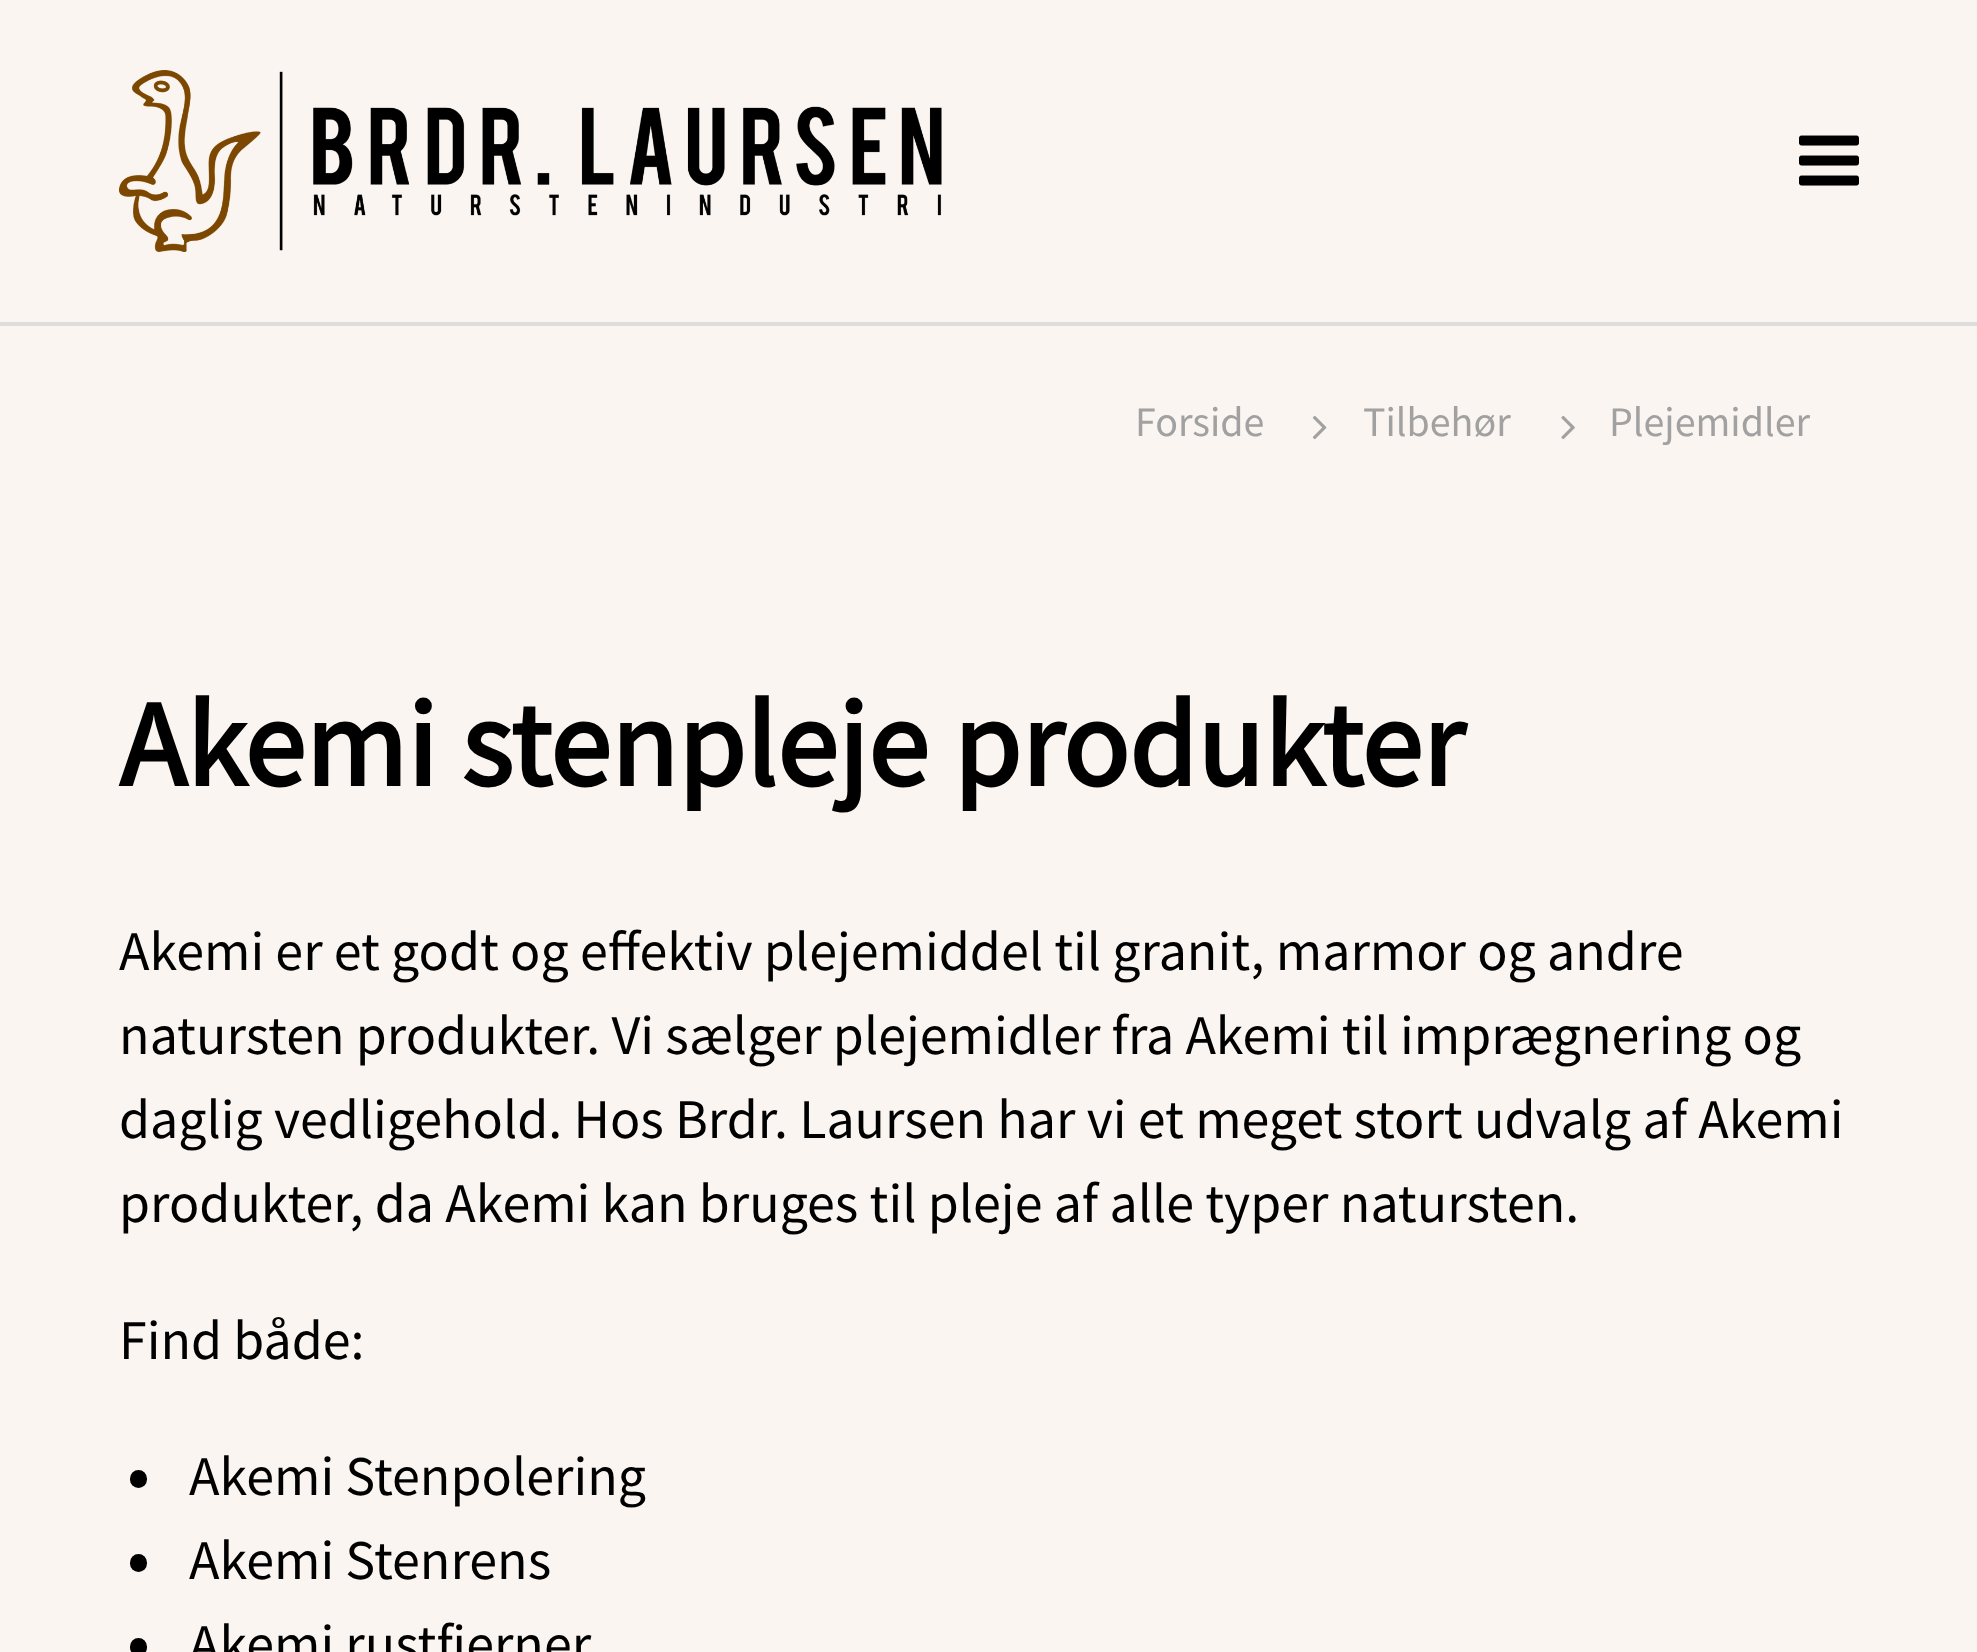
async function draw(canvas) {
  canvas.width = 1977;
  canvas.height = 1652;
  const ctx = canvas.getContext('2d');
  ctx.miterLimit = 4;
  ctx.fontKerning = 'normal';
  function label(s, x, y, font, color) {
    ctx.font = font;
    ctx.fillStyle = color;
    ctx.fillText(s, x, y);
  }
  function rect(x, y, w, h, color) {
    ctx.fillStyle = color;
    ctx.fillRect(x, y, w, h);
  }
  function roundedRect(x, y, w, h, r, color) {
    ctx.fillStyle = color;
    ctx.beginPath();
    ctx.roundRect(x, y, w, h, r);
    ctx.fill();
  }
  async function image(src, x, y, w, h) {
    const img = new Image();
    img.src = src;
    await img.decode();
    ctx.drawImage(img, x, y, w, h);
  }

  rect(0, 0, 1977, 1652, '#faf5f1');
  await image('assets/img1.png', 119, 70, 823, 182);
  await image('assets/img2.png', 1799, 135, 60, 51);
  rect(0, 322, 1977, 4, '#ddd');
  label('Forside', 1135, 436, '42px Source Sans Pro', '#a1a1a1');
  await image('assets/img3.png', 1312, 415, 15, 25);
  label('Tilbehør', 1363, 436, '42px Source Sans Pro', '#a1a1a1');
  await image('assets/img4.png', 1561, 415, 14, 25);
  label('Plejemidler', 1609, 436, '42px Source Sans Pro', '#a1a1a1');
  label('Akemi stenpleje produkter', 119, 786, 'bold 122.5px Source Sans Pro', '#000');
  label('Akemi er et godt og effektiv plejemiddel til granit, marmor og andre', 119, 970, '56px Source Sans Pro', '#000');
  label('natursten produkter. Vi sælger plejemidler fra Akemi til imprægnering og', 119, 1054, '56px Source Sans Pro', '#000');
  label('daglig vedligehold. Hos Brdr. Laursen har vi et meget stort udvalg af Akemi', 119, 1138, '56px Source Sans Pro', '#000');
  label('produkter, da Akemi kan bruges til pleje af alle typer natursten.', 119, 1222, '56px Source Sans Pro', '#000');
  label('Find både:', 119, 1359, '56px Source Sans Pro', '#000');
  roundedRect(130, 1470, 17, 18, 8.5, '#000');
  label('Akemi Stenpolering', 189, 1495, '56px Source Sans Pro', '#000');
  roundedRect(130, 1554, 17, 18, 8.5, '#000');
  label('Akemi Stenrens', 189, 1579, '56px Source Sans Pro', '#000');
  roundedRect(130, 1638, 17, 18, 8.5, '#000');
  label('Akemi rustfjerner', 189, 1663, '56px Source Sans Pro', '#000');
}

draw(document.querySelector('canvas'));
